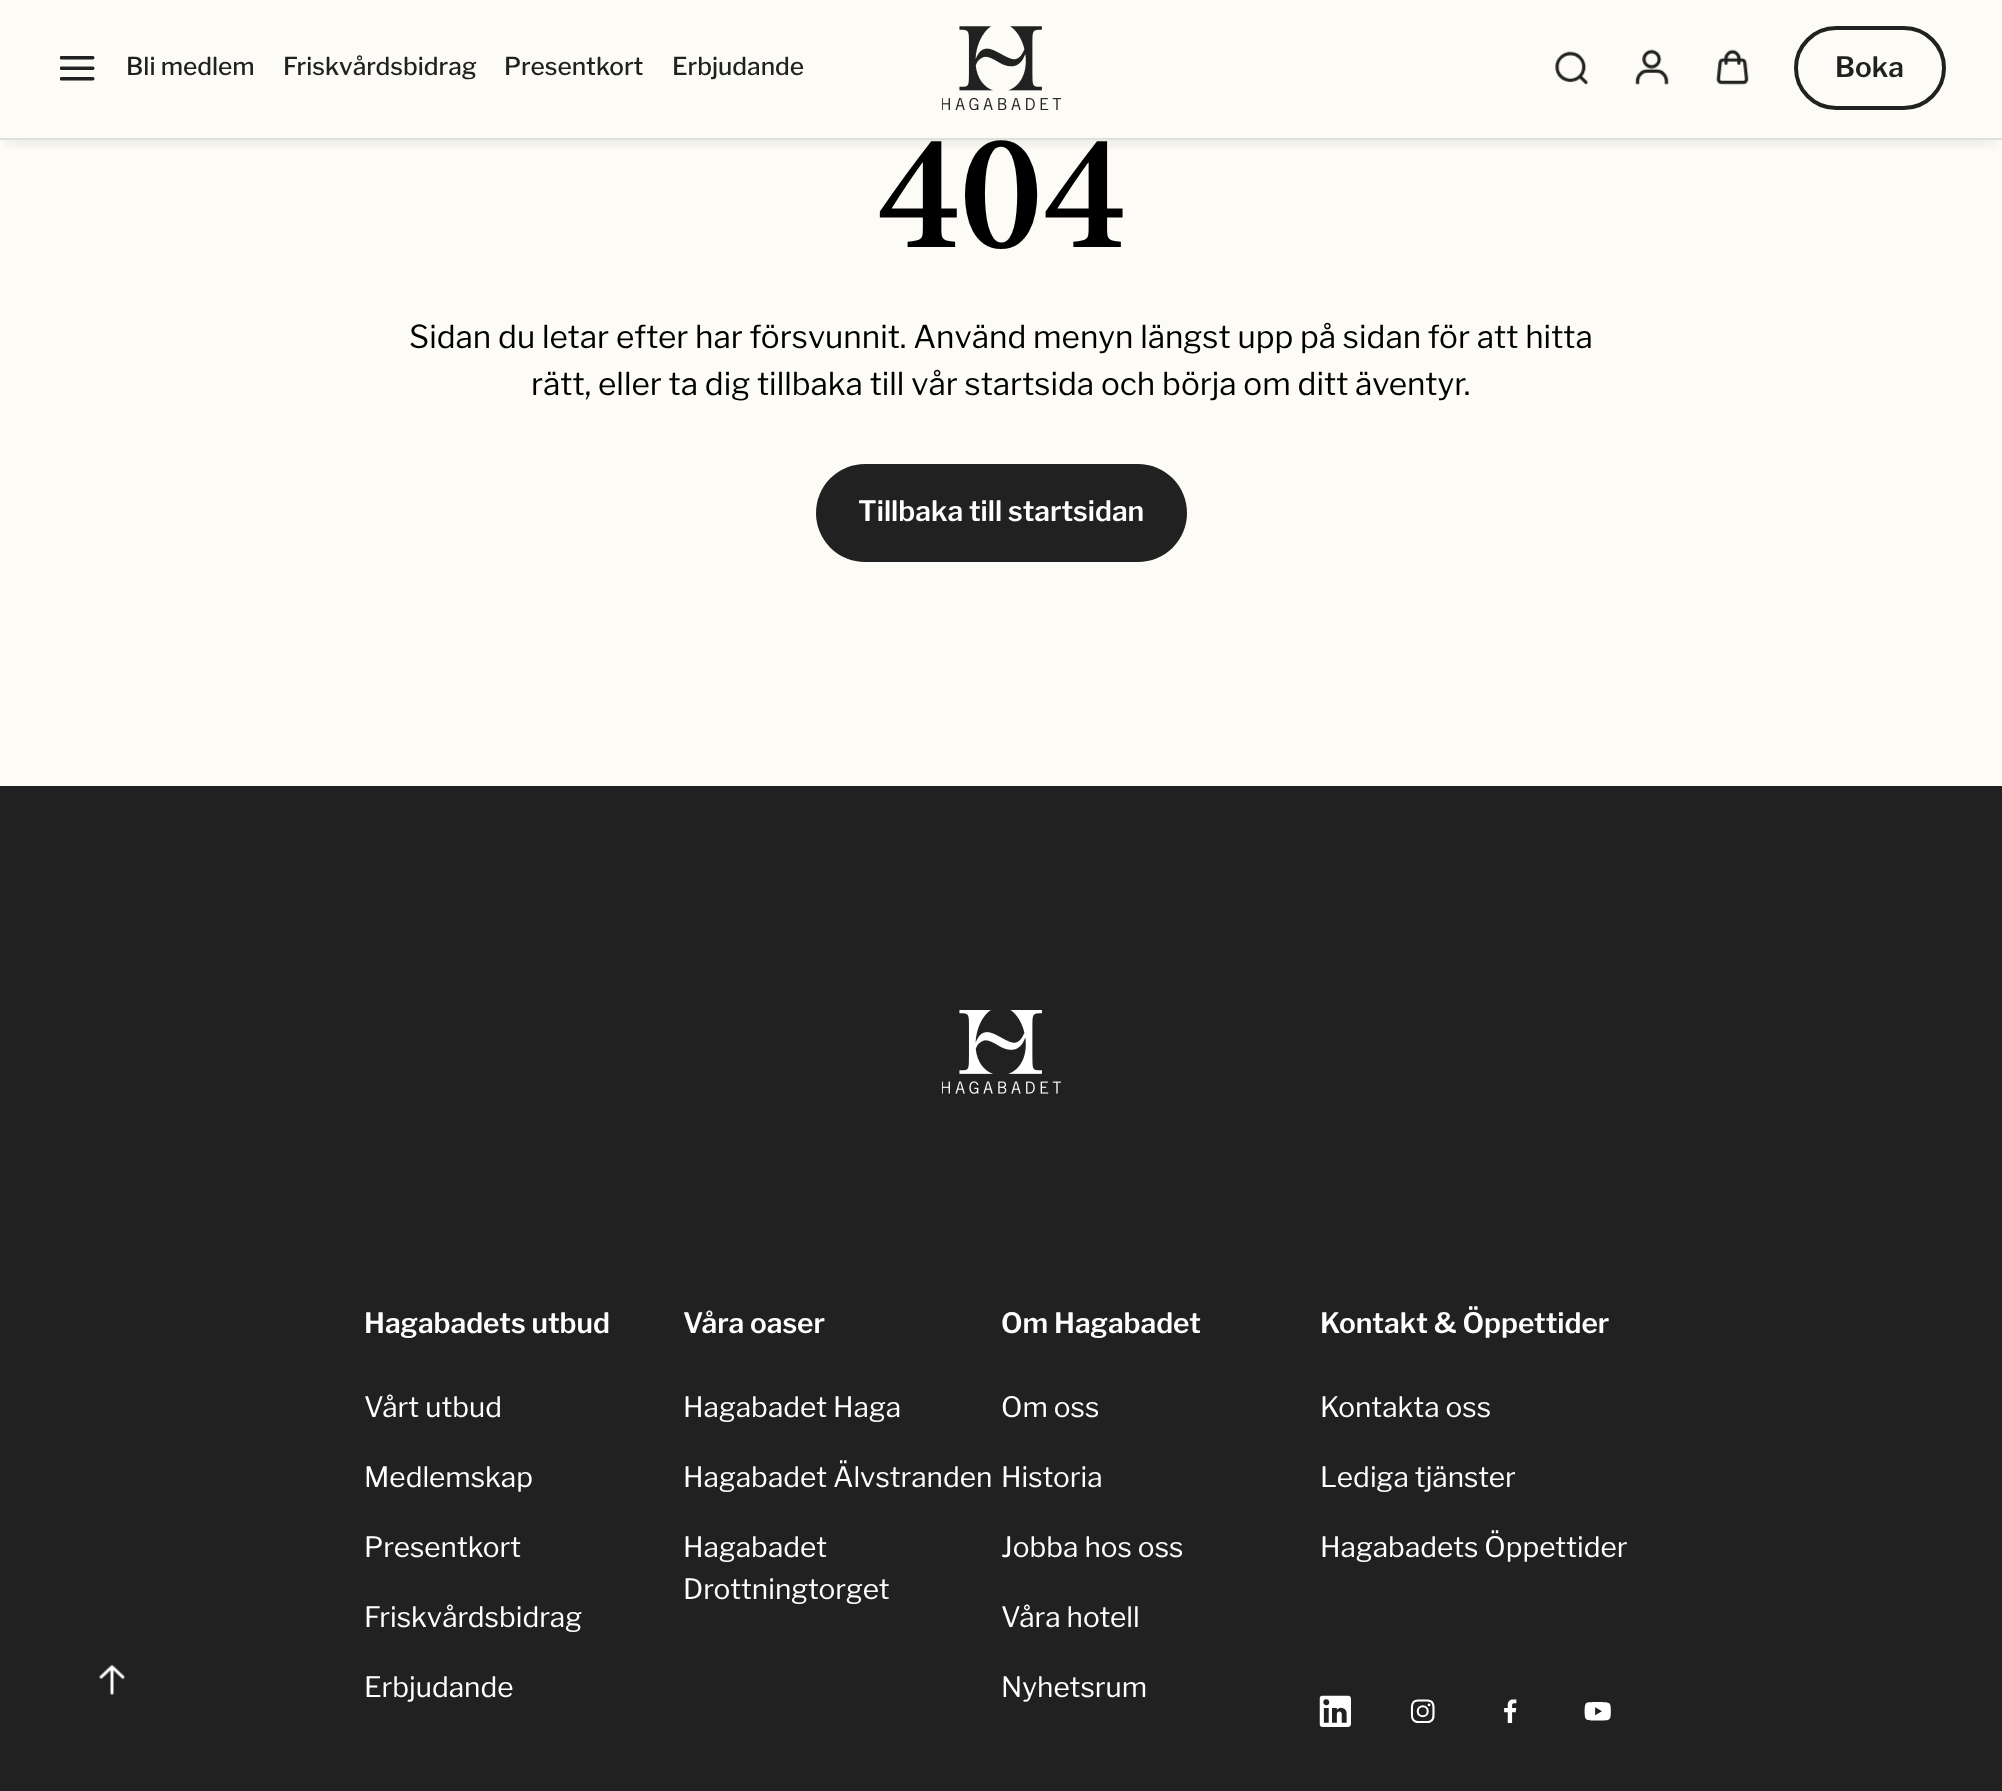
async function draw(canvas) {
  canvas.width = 2002;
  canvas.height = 1791;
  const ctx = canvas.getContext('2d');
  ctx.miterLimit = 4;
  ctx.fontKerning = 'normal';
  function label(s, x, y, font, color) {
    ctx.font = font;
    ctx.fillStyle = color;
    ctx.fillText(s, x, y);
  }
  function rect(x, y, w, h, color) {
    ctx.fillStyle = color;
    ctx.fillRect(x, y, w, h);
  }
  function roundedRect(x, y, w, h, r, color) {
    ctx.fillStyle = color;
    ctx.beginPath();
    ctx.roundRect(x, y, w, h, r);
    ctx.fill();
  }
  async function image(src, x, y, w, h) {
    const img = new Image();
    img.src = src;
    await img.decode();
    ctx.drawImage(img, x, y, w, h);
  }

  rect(0, 0, 2002, 1791, '#fdfbf5');
  ctx.save();
  ctx.beginPath();
  ctx.rect(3, 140, 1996, 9);
  ctx.clip();
  ctx.fillStyle = '#0000001a';
  ctx.filter = 'blur(10.5px)';
  ctx.beginPath();
  ctx.rect(5, 9, 1992, 131);
  ctx.fill();
  ctx.filter = 'none';
  ctx.restore();
  rect(0, 138, 2002, 2, '#e0e0e0');
  await image('assets/img1.png', 60, 56, 35, 25);
  label('Bli medlem', 126, 75, '500 24.5px Libre Franklin', '#212121');
  label('Friskvårdsbidrag', 283, 75, '500 24.5px Libre Franklin', '#212121');
  label('Presentkort', 504, 75, '500 24.5px Libre Franklin', '#212121');
  label('Erbjudande', 672, 75, '500 24.5px Libre Franklin', '#212121');
  await image('assets/img2.png', 942, 26, 119, 84);
  await image('assets/img3.png', 1555, 51, 34, 34);
  await image('assets/img4.png', 1635, 49, 34, 36);
  await image('assets/img5.png', 1716, 49, 33, 36);
  ctx.beginPath();
  ctx.roundRect(1796, 28, 148, 80, 40);
  ctx.strokeStyle = '#212121';
  ctx.lineWidth = 4;
  ctx.stroke();
  label('Boka', 1835, 77, '600 28px Libre Franklin', '#212121');
  label('404', 877, 247, '600 168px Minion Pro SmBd', '#000');
  label('Sidan du letar efter har försvunnit. Använd menyn längst upp på sidan för att hitta', 409, 348, '31.5px Libre Franklin', '#000');
  label('rätt, eller ta dig tillbaka till vår startsida och börja om ditt äventyr.', 531, 395, '31.5px Libre Franklin', '#000');
  roundedRect(816, 464, 371, 98, 49, '#212121');
  label('Tillbaka till startsidan', 858, 521, '600 28px Libre Franklin', '#fff');
  rect(0, 786, 2002, 1005, '#212121');
  await image('assets/img6.png', 99, 1664, 26, 31);
  await image('assets/img7.png', 942, 1010, 119, 84);
  label('Hagabadets utbud', 364, 1333, '600 28px Libre Franklin', '#fff');
  label('Vårt utbud', 364, 1417, '28px Libre Franklin', '#fff');
  label('Medlemskap', 364, 1487, '28px Libre Franklin', '#fff');
  label('Presentkort', 364, 1557, '28px Libre Franklin', '#fff');
  label('Friskvårdsbidrag', 364, 1627, '28px Libre Franklin', '#fff');
  label('Erbjudande', 364, 1697, '28px Libre Franklin', '#fff');
  label('Våra oaser', 683, 1333, '600 28px Libre Franklin', '#fff');
  label('Hagabadet Haga', 683, 1417, '28px Libre Franklin', '#fff');
  label('Hagabadet Älvstranden', 683, 1487, '28px Libre Franklin', '#fff');
  label('Hagabadet', 683, 1557, '28px Libre Franklin', '#fff');
  label('Drottningtorget', 683, 1599, '28px Libre Franklin', '#fff');
  label('Om Hagabadet', 1001, 1333, '600 28px Libre Franklin', '#fff');
  label('Om oss', 1001, 1417, '28px Libre Franklin', '#fff');
  label('Historia', 1001, 1487, '28px Libre Franklin', '#fff');
  label('Jobba hos oss', 1001, 1557, '28px Libre Franklin', '#fff');
  label('Våra hotell', 1001, 1627, '28px Libre Franklin', '#fff');
  label('Nyhetsrum', 1001, 1697, '28px Libre Franklin', '#fff');
  label('Kontakt & Öppettider', 1320, 1333, '600 28px Libre Franklin', '#fff');
  label('Kontakta oss', 1320, 1417, '28px Libre Franklin', '#fff');
  label('Lediga tjänster', 1320, 1487, '28px Libre Franklin', '#fff');
  label('Hagabadets Öppettider', 1320, 1557, '28px Libre Franklin', '#fff');
  await image('assets/img8.png', 1319, 1695, 32, 32);
  await image('assets/img9.png', 1410, 1699, 25, 24);
  await image('assets/img10.png', 1504, 1699, 13, 24);
  await image('assets/img11.png', 1584, 1702, 27, 19);
}

draw(document.querySelector('canvas'));
